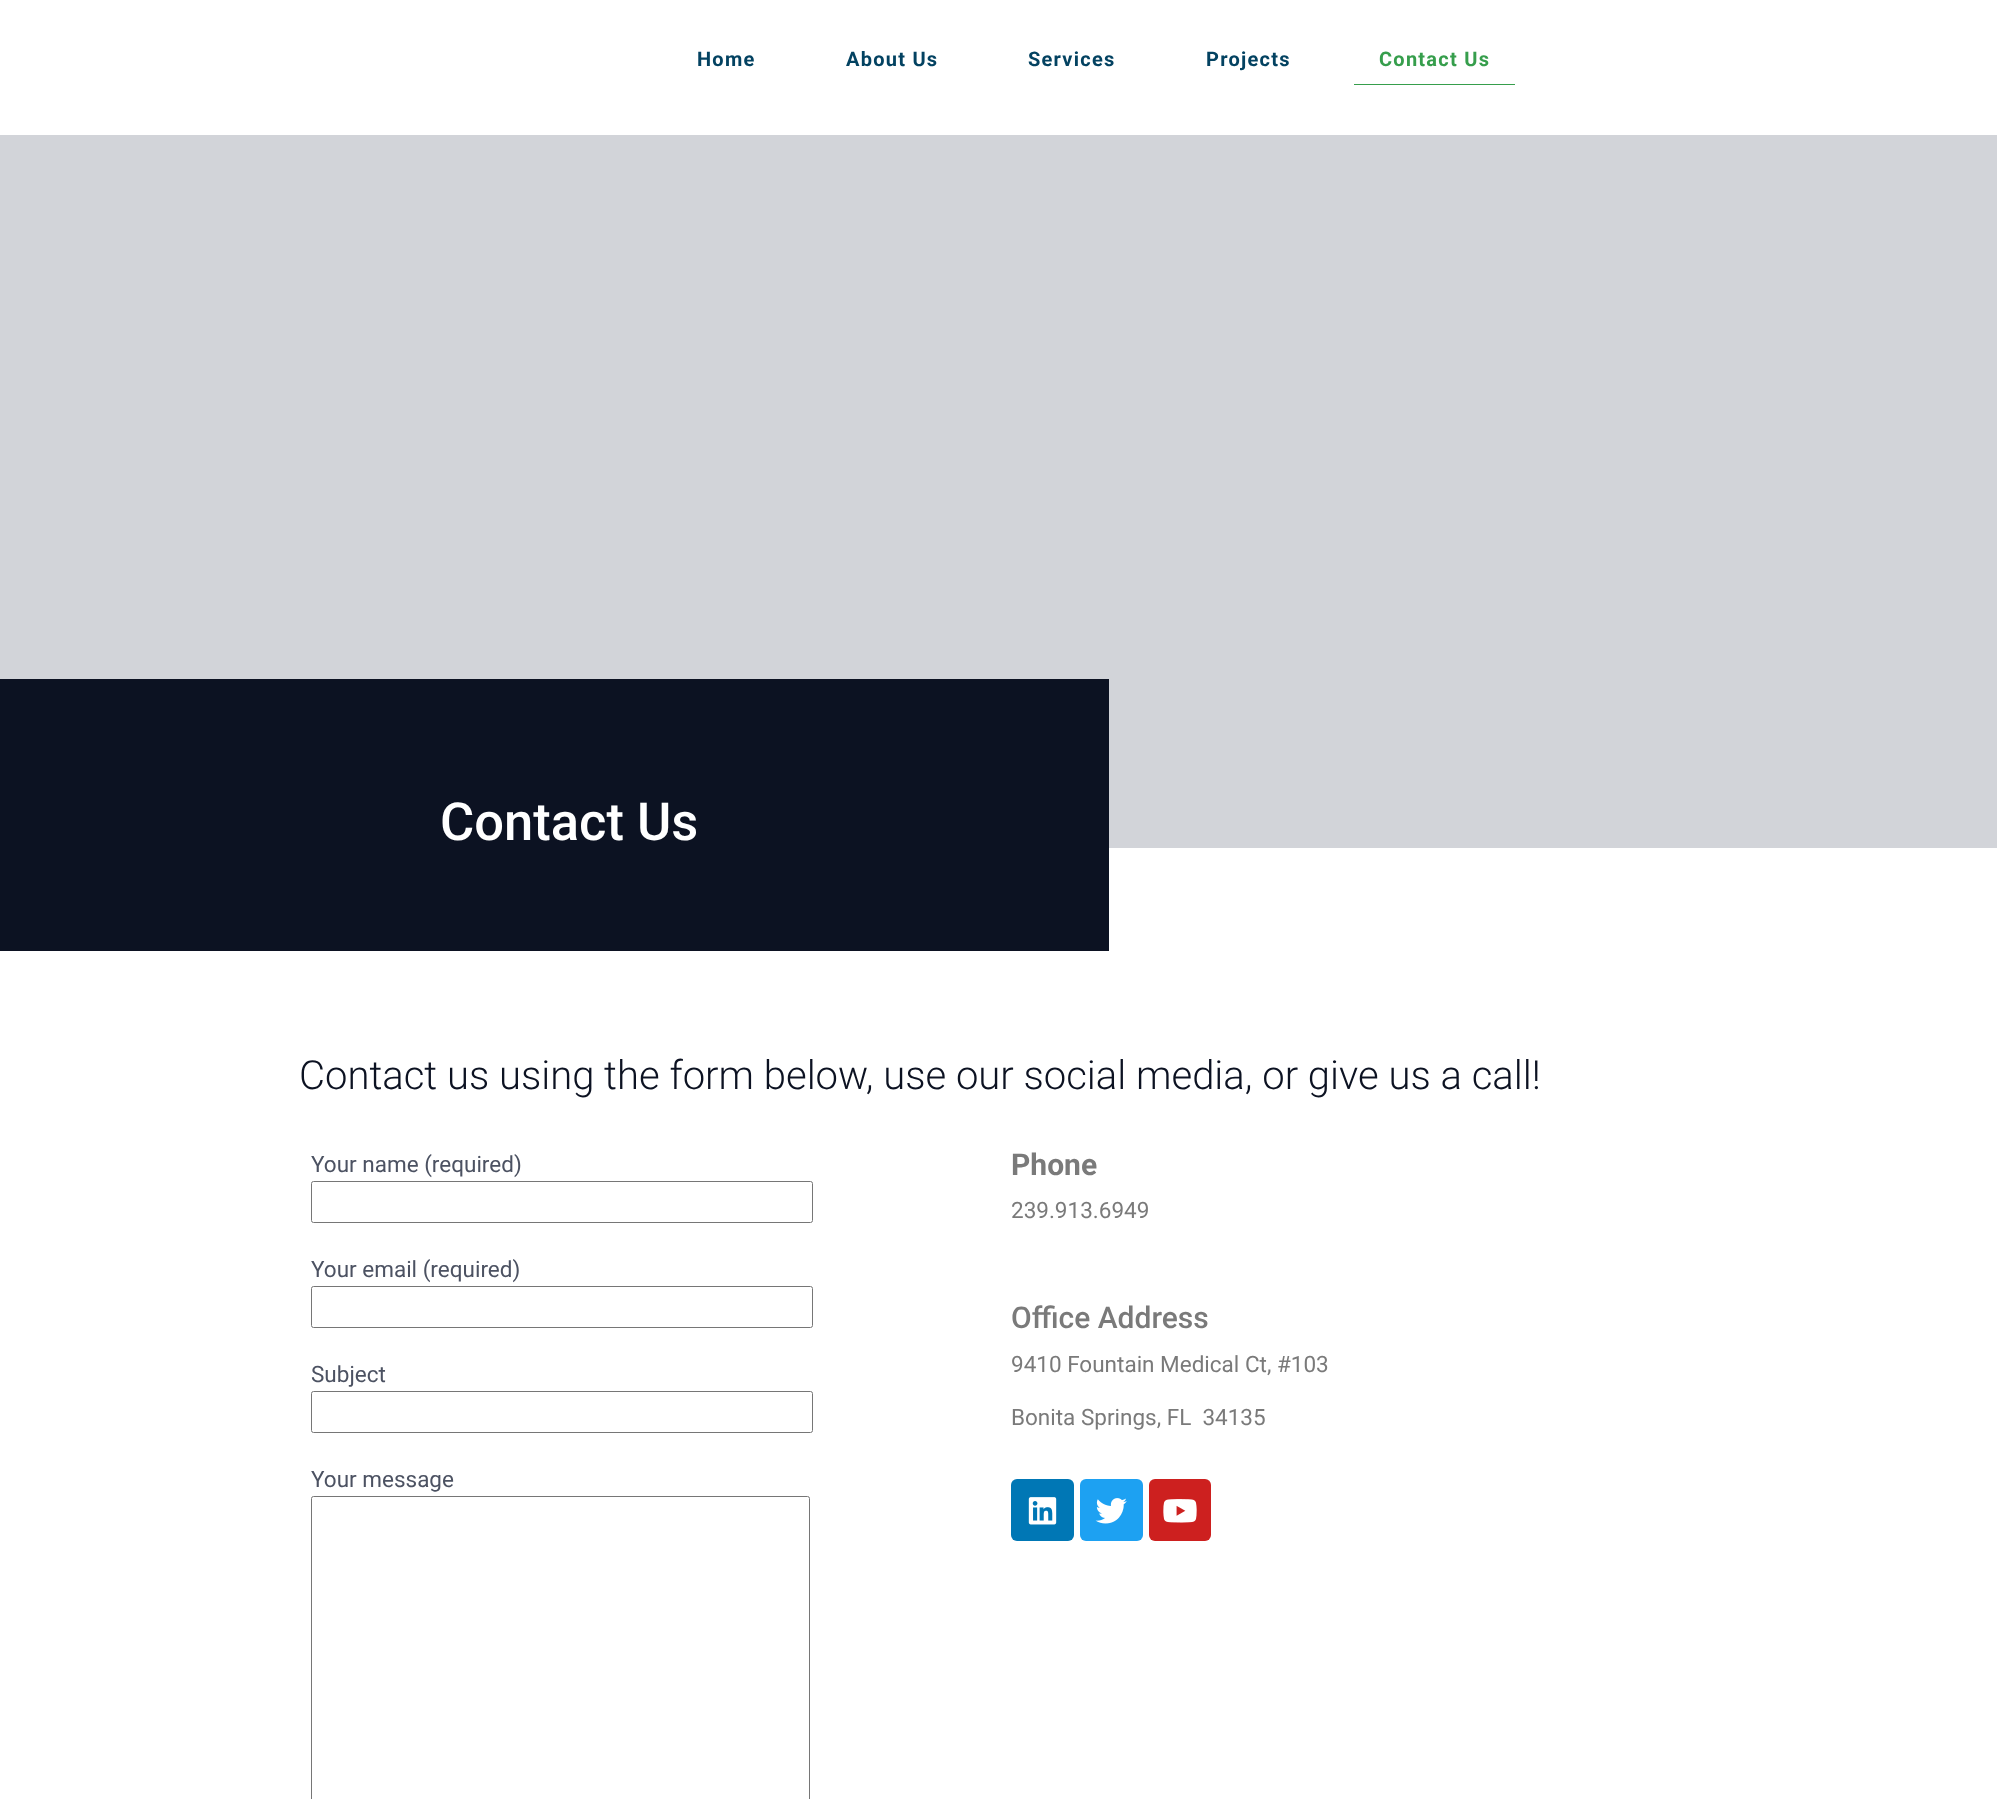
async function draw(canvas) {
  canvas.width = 1997;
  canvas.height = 1799;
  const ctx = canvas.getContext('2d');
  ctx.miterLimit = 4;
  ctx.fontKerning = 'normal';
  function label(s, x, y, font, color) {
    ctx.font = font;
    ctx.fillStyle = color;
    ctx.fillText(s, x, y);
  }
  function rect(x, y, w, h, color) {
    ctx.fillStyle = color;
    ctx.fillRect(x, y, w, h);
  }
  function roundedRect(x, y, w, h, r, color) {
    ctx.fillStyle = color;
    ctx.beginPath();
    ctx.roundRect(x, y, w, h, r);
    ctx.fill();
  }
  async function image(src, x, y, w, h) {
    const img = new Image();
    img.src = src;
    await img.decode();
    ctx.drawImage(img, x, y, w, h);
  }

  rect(0, 0, 1997, 1799, '#fff');
  ctx.letterSpacing = '1.25px';
  label('Home', 697, 66, 'bold 20px Roboto', '#034261');
  label('About Us', 846, 66, 'bold 20px Roboto', '#034261');
  label('Services', 1028, 66, 'bold 20px Roboto', '#034261');
  label('Projects', 1206, 66, 'bold 20px Roboto', '#034261');
  rect(1354, 84, 161, 1, '#369e4c');
  label('Contact Us', 1379, 66, 'bold 20px Roboto', '#369e4c');
  rect(0, 135, 1997, 713, '#d2d4d9');
  rect(0, 679, 1109, 272, '#0c1222');
  ctx.letterSpacing = '0px';
  label('Contact Us', 440, 840, '500 52.5px Roboto', '#fff');
  label('Contact us using the form below, use our social media, or give us a call!', 299, 1089, '300 40px Roboto', '#0c1222');
  label('Your name (required)', 311, 1172, '22.5px Roboto', '#4c5262');
  ctx.beginPath();
  ctx.roundRect(311.5, 1181.5, 501, 41, 2);
  ctx.strokeStyle = '#767676';
  ctx.stroke();
  label('Your email (required)', 311, 1277, '22.5px Roboto', '#4c5262');
  ctx.beginPath();
  ctx.roundRect(311.5, 1286.5, 501, 41, 2);
  ctx.stroke();
  label('Subject', 311, 1382, '22.5px Roboto', '#4c5262');
  ctx.beginPath();
  ctx.roundRect(311.5, 1391.5, 501, 41, 2);
  ctx.stroke();
  label('Your message', 311, 1487, '22.5px Roboto', '#4c5262');
  ctx.beginPath();
  ctx.roundRect(311.5, 1496.5, 498, 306, 2);
  ctx.stroke();
  label('Phone', 1011, 1175, 'bold 30px Roboto', '#7a7a7a');
  label('239.913.6949', 1011, 1218, '22.5px Roboto', '#7a7a7a');
  label('Office Address', 1011, 1328, '500 30px Roboto', '#7a7a7a');
  label('9410 Fountain Medical Ct, #103', 1011, 1372, '22.5px Roboto', '#7a7a7a');
  label('Bonita Springs, FL  34135', 1011, 1425, '22.5px Roboto', '#7a7a7a');
  roundedRect(1011, 1479, 63, 62, 6, '#0077b5');
  await image('assets/img1.png', 1028, 1497, 29, 28);
  roundedRect(1080, 1479, 63, 62, 6, '#1da1f2');
  await image('assets/img2.png', 1095, 1498, 32, 26);
  roundedRect(1149, 1479, 62, 62, 6, '#cd201f');
  await image('assets/img3.png', 1163, 1499, 34, 24);
}

draw(document.querySelector('canvas'));
